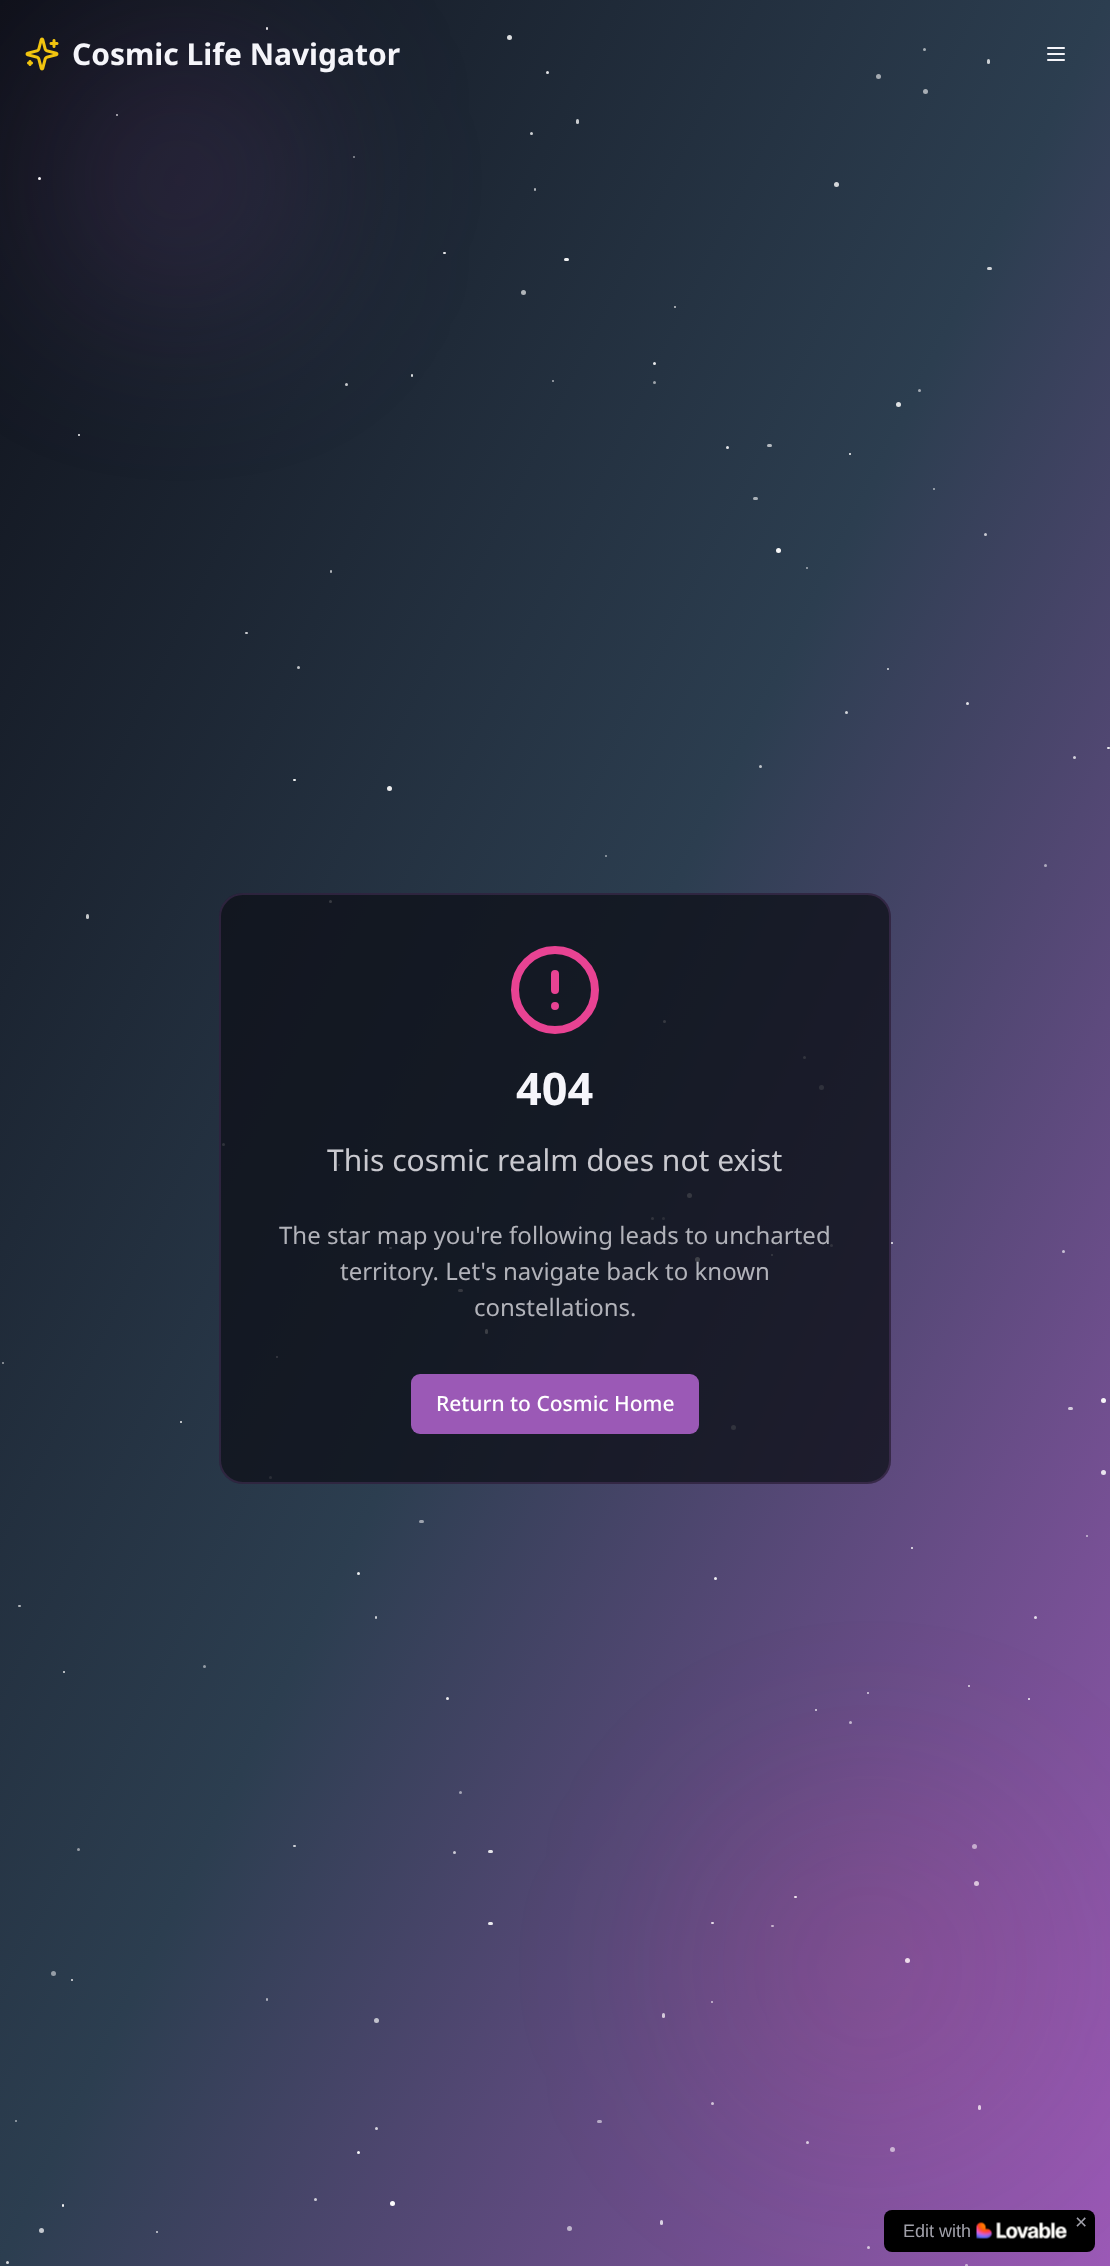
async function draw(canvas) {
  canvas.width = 1110;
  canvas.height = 2266;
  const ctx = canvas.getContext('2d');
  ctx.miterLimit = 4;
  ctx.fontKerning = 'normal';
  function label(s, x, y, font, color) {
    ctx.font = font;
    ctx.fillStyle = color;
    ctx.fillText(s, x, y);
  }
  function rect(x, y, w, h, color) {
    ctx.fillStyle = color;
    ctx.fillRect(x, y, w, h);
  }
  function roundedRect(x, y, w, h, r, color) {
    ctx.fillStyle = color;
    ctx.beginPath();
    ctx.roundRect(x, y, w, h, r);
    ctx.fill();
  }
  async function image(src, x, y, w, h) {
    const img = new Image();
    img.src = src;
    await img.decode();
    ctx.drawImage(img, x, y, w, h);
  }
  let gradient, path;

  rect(0, 0, 1110, 2266, '#fff');
  gradient = ctx.createLinearGradient(-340, 695, 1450, 1572);
  gradient.addColorStop(0, '#0f111a');
  gradient.addColorStop(0.5, '#2c3e50');
  gradient.addColorStop(1, '#9b59b6');
  ctx.fillStyle = gradient;
  ctx.fillRect(0, 0, 1110, 2266);
  roundedRect(266, 27, 2, 3, 1, '#e4e4e6');
  ctx.fillStyle = '#dcdee0';
  ctx.beginPath();
  ctx.arc(509.5, 37.5, 2.5, 0, 2 * Math.PI);
  ctx.fill();
  ctx.fillStyle = '#e3e4e6';
  ctx.beginPath();
  ctx.arc(547.5, 72.5, 1.5, 0, 2 * Math.PI);
  ctx.fill();
  ctx.fillStyle = '#c8c9cc';
  ctx.beginPath();
  ctx.arc(117, 115, 1, 0, 2 * Math.PI);
  ctx.fill();
  roundedRect(576, 119, 3, 5, 1.5, '#c9cccf');
  ctx.fillStyle = '#ced0d3';
  ctx.beginPath();
  ctx.arc(531.5, 133.5, 1.5, 0, 2 * Math.PI);
  ctx.fill();
  ctx.fillStyle = '#93979d';
  ctx.beginPath();
  ctx.arc(354, 157, 1, 0, 2 * Math.PI);
  ctx.fill();
  ctx.fillStyle = '#fff';
  ctx.beginPath();
  ctx.arc(39.5, 178.5, 1.5, 0, 2 * Math.PI);
  ctx.fill();
  roundedRect(534, 188, 2, 3, 1, '#afb3b8');
  roundedRect(443, 252, 3, 2, 1, '#e5e6e8');
  roundedRect(564, 258, 5, 3, 1.5, '#f0f1f2');
  ctx.fillStyle = '#b0b4b9';
  ctx.beginPath();
  ctx.arc(523.5, 292.5, 2.5, 0, 2 * Math.PI);
  ctx.fill();
  roundedRect(411, 374, 2, 3, 1, '#dadcde');
  ctx.fillStyle = '#acb1b7';
  ctx.beginPath();
  ctx.arc(553, 381, 1, 0, 2 * Math.PI);
  ctx.fill();
  ctx.fillStyle = '#c7cacd';
  ctx.beginPath();
  ctx.arc(346.5, 384.5, 1.5, 0, 2 * Math.PI);
  ctx.fill();
  ctx.fillStyle = '#f7f7f7';
  ctx.beginPath();
  ctx.arc(79, 435, 1, 0, 2 * Math.PI);
  ctx.fill();
  roundedRect(330, 570, 2, 3, 1, '#afb3b8');
  ctx.fillStyle = '#9b59b633';
  ctx.filter = 'blur(96px)';
  ctx.beginPath();
  ctx.roundRect(60, 60, 240, 240, 120);
  ctx.fill();
  ctx.filter = 'none';
  ctx.fillStyle = '#a6adb4';
  ctx.beginPath();
  ctx.arc(924.5, 49.5, 1.5, 0, 2 * Math.PI);
  ctx.fill();
  roundedRect(987, 59, 3, 5, 1.5, '#cbcfd3');
  ctx.fillStyle = '#a5abb2';
  ctx.beginPath();
  ctx.arc(878.5, 76.5, 2.5, 0, 2 * Math.PI);
  ctx.fill();
  ctx.fillStyle = '#a8aeb5';
  ctx.beginPath();
  ctx.arc(925.5, 91.5, 2.5, 0, 2 * Math.PI);
  ctx.fill();
  ctx.fillStyle = '#d4d7da';
  ctx.beginPath();
  ctx.arc(836.5, 184.5, 2.5, 0, 2 * Math.PI);
  ctx.fill();
  roundedRect(987, 267, 5, 3, 1.5, '#d0d4d8');
  ctx.fillStyle = '#c8cbcf';
  ctx.beginPath();
  ctx.arc(675, 307, 1, 0, 2 * Math.PI);
  ctx.fill();
  ctx.fillStyle = '#e7e8ea';
  ctx.beginPath();
  ctx.arc(654.5, 363.5, 1.5, 0, 2 * Math.PI);
  ctx.fill();
  ctx.fillStyle = '#9da3aa';
  ctx.beginPath();
  ctx.arc(654.5, 382.5, 1.5, 0, 2 * Math.PI);
  ctx.fill();
  ctx.fillStyle = '#a5acb4';
  ctx.beginPath();
  ctx.arc(919.5, 390.5, 1.5, 0, 2 * Math.PI);
  ctx.fill();
  ctx.fillStyle = '#dfe2e4';
  ctx.beginPath();
  ctx.arc(898.5, 404.5, 2.5, 0, 2 * Math.PI);
  ctx.fill();
  roundedRect(767, 444, 5, 3, 1.5, '#b4bac0');
  ctx.fillStyle = '#e5e6e9';
  ctx.beginPath();
  ctx.arc(727.5, 447.5, 1.5, 0, 2 * Math.PI);
  ctx.fill();
  ctx.fillStyle = '#fbfcfc';
  ctx.beginPath();
  ctx.arc(850, 454, 1, 0, 2 * Math.PI);
  ctx.fill();
  ctx.fillStyle = '#b1b7bf';
  ctx.beginPath();
  ctx.arc(934, 489, 1, 0, 2 * Math.PI);
  ctx.fill();
  roundedRect(753, 497, 5, 3, 1.5, '#aab1b8');
  ctx.fillStyle = '#c7c9d1';
  ctx.beginPath();
  ctx.arc(985.5, 534.5, 1.5, 0, 2 * Math.PI);
  ctx.fill();
  ctx.fillStyle = '#f7f7f8';
  ctx.beginPath();
  ctx.arc(778.5, 550.5, 2.5, 0, 2 * Math.PI);
  ctx.fill();
  ctx.fillStyle = '#a8afb7';
  ctx.beginPath();
  ctx.arc(807, 568, 1, 0, 2 * Math.PI);
  ctx.fill();
  roundedRect(245, 632, 3, 2, 1, '#c8cace');
  ctx.fillStyle = '#bfc2c6';
  ctx.beginPath();
  ctx.arc(298.5, 667.5, 1.5, 0, 2 * Math.PI);
  ctx.fill();
  ctx.fillStyle = '#d9dbe0';
  ctx.beginPath();
  ctx.arc(888, 669, 1, 0, 2 * Math.PI);
  ctx.fill();
  ctx.fillStyle = '#e2e2e7';
  ctx.beginPath();
  ctx.arc(967.5, 703.5, 1.5, 0, 2 * Math.PI);
  ctx.fill();
  ctx.fillStyle = '#d1d4d9';
  ctx.beginPath();
  ctx.arc(846.5, 712.5, 1.5, 0, 2 * Math.PI);
  ctx.fill();
  roundedRect(1107, 747, 3, 2, 1, '#eae9ee');
  ctx.fillStyle = '#d3d1db';
  ctx.beginPath();
  ctx.arc(1074.5, 757.5, 1.5, 0, 2 * Math.PI);
  ctx.fill();
  ctx.fillStyle = '#bfc4ca';
  ctx.beginPath();
  ctx.arc(760.5, 766.5, 1.5, 0, 2 * Math.PI);
  ctx.fill();
  roundedRect(293, 779, 3, 2, 1, '#eff0f1');
  ctx.fillStyle = '#ecedee';
  ctx.beginPath();
  ctx.arc(389.5, 788.5, 2.5, 0, 2 * Math.PI);
  ctx.fill();
  ctx.fillStyle = '#a0a8af';
  ctx.beginPath();
  ctx.arc(606, 856, 1, 0, 2 * Math.PI);
  ctx.fill();
  ctx.fillStyle = '#aeaabd';
  ctx.beginPath();
  ctx.arc(1045.5, 865.5, 1.5, 0, 2 * Math.PI);
  ctx.fill();
  ctx.fillStyle = '#dcdee0';
  ctx.beginPath();
  ctx.arc(330.5, 901.5, 1.5, 0, 2 * Math.PI);
  ctx.fill();
  roundedRect(86, 914, 3, 5, 1.5, '#c4c7ca');
  ctx.fillStyle = '#d0d3d8';
  ctx.beginPath();
  ctx.arc(664.5, 1021.5, 1.5, 0, 2 * Math.PI);
  ctx.fill();
  ctx.fillStyle = '#c1c2cc';
  ctx.beginPath();
  ctx.arc(804.5, 1057.5, 1.5, 0, 2 * Math.PI);
  ctx.fill();
  ctx.fillStyle = '#b0b0be';
  ctx.beginPath();
  ctx.arc(821.5, 1087.5, 2.5, 0, 2 * Math.PI);
  ctx.fill();
  ctx.fillStyle = '#afb4ba';
  ctx.beginPath();
  ctx.arc(223.5, 1144.5, 1.5, 0, 2 * Math.PI);
  ctx.fill();
  ctx.fillStyle = '#c1c5ca';
  ctx.beginPath();
  ctx.arc(339, 1165, 1, 0, 2 * Math.PI);
  ctx.fill();
  ctx.fillStyle = '#d1d3d9';
  ctx.beginPath();
  ctx.arc(689.5, 1195.5, 2.5, 0, 2 * Math.PI);
  ctx.fill();
  ctx.fillStyle = '#bbbec7';
  ctx.beginPath();
  ctx.arc(652.5, 1218.5, 1.5, 0, 2 * Math.PI);
  ctx.fill();
  ctx.fillStyle = '#a2a5b3';
  ctx.beginPath();
  ctx.arc(663.5, 1218.5, 1.5, 0, 2 * Math.PI);
  ctx.fill();
  ctx.fillStyle = '#f2f1f5';
  ctx.beginPath();
  ctx.arc(892, 1243, 1, 0, 2 * Math.PI);
  ctx.fill();
  ctx.fillStyle = '#b9b6c6';
  ctx.beginPath();
  ctx.arc(831.5, 1245.5, 1.5, 0, 2 * Math.PI);
  ctx.fill();
  roundedRect(389, 1247, 3, 2, 1, '#dde0e3');
  ctx.fillStyle = '#c9c0d4';
  ctx.beginPath();
  ctx.arc(1063.5, 1251.5, 1.5, 0, 2 * Math.PI);
  ctx.fill();
  ctx.fillStyle = '#e7e7eb';
  ctx.beginPath();
  ctx.arc(772, 1255, 1, 0, 2 * Math.PI);
  ctx.fill();
  ctx.fillStyle = '#fefefe';
  ctx.beginPath();
  ctx.arc(697.5, 1259.5, 2.5, 0, 2 * Math.PI);
  ctx.fill();
  roundedRect(458, 1289, 5, 3, 1.5, '#cfd3d7');
  roundedRect(485, 1329, 3, 5, 1.5, '#eceef0');
  ctx.fillStyle = '#e7e8ea';
  ctx.beginPath();
  ctx.arc(277, 1357, 1, 0, 2 * Math.PI);
  ctx.fill();
  ctx.fillStyle = '#9fa3aa';
  ctx.beginPath();
  ctx.arc(3, 1363, 1, 0, 2 * Math.PI);
  ctx.fill();
  ctx.fillStyle = '#f7f5f8';
  ctx.beginPath();
  ctx.arc(1103.5, 1400.5, 2.5, 0, 2 * Math.PI);
  ctx.fill();
  roundedRect(1068, 1407, 5, 3, 1.5, '#d5ccde');
  ctx.fillStyle = '#ecedee';
  ctx.beginPath();
  ctx.arc(181, 1422, 1, 0, 2 * Math.PI);
  ctx.fill();
  ctx.fillStyle = '#b9b7c6';
  ctx.beginPath();
  ctx.arc(733.5, 1427.5, 2.5, 0, 2 * Math.PI);
  ctx.fill();
  ctx.fillStyle = '#e9e4ee';
  ctx.beginPath();
  ctx.arc(1103.5, 1472.5, 2.5, 0, 2 * Math.PI);
  ctx.fill();
  ctx.fillStyle = '#959ca5';
  ctx.beginPath();
  ctx.arc(270.5, 1477.5, 1.5, 0, 2 * Math.PI);
  ctx.fill();
  roundedRect(419, 1520, 5, 3, 1.5, '#9da3ae');
  ctx.fillStyle = '#cdc0d8';
  ctx.beginPath();
  ctx.arc(1087, 1536, 1, 0, 2 * Math.PI);
  ctx.fill();
  ctx.fillStyle = '#f7f5f8';
  ctx.beginPath();
  ctx.arc(912, 1548, 1, 0, 2 * Math.PI);
  ctx.fill();
  ctx.fillStyle = '#eaecee';
  ctx.beginPath();
  ctx.arc(358.5, 1573.5, 1.5, 0, 2 * Math.PI);
  ctx.fill();
  ctx.fillStyle = '#efeef2';
  ctx.beginPath();
  ctx.arc(715.5, 1578.5, 1.5, 0, 2 * Math.PI);
  ctx.fill();
  roundedRect(18, 1605, 3, 2, 1, '#b2b7bc');
  roundedRect(375, 1616, 2, 3, 1, '#cacdd3');
  ctx.fillStyle = '#e5deeb';
  ctx.beginPath();
  ctx.arc(1035.5, 1617.5, 1.5, 0, 2 * Math.PI);
  ctx.fill();
  ctx.fillStyle = '#959da6';
  ctx.beginPath();
  ctx.arc(204.5, 1666.5, 1.5, 0, 2 * Math.PI);
  ctx.fill();
  ctx.fillStyle = '#e3e5e7';
  ctx.beginPath();
  ctx.arc(64, 1672, 1, 0, 2 * Math.PI);
  ctx.fill();
  ctx.fillStyle = '#e5dfea';
  ctx.beginPath();
  ctx.arc(969, 1686, 1, 0, 2 * Math.PI);
  ctx.fill();
  ctx.fillStyle = '#ded8e5';
  ctx.beginPath();
  ctx.arc(868, 1693, 1, 0, 2 * Math.PI);
  ctx.fill();
  ctx.fillStyle = '#e9e9ed';
  ctx.beginPath();
  ctx.arc(447.5, 1698.5, 1.5, 0, 2 * Math.PI);
  ctx.fill();
  ctx.fillStyle = '#f7f5f9';
  ctx.beginPath();
  ctx.arc(1029, 1699, 1, 0, 2 * Math.PI);
  ctx.fill();
  ctx.fillStyle = '#e6e2eb';
  ctx.beginPath();
  ctx.arc(816, 1710, 1, 0, 2 * Math.PI);
  ctx.fill();
  ctx.fillStyle = '#c4bad0';
  ctx.beginPath();
  ctx.arc(850.5, 1722.5, 1.5, 0, 2 * Math.PI);
  ctx.fill();
  ctx.fillStyle = '#a4a5b5';
  ctx.beginPath();
  ctx.arc(460.5, 1792.5, 1.5, 0, 2 * Math.PI);
  ctx.fill();
  roundedRect(293, 1845, 3, 2, 1, '#cdd0d6');
  ctx.fillStyle = '#c4b2d1';
  ctx.beginPath();
  ctx.arc(974.5, 1846.5, 2.5, 0, 2 * Math.PI);
  ctx.fill();
  ctx.fillStyle = '#969da6';
  ctx.beginPath();
  ctx.arc(78.5, 1849.5, 1.5, 0, 2 * Math.PI);
  ctx.fill();
  ctx.fillStyle = '#cbcad4';
  ctx.beginPath();
  ctx.arc(454.5, 1852.5, 1.5, 0, 2 * Math.PI);
  ctx.fill();
  roundedRect(488, 1850, 5, 3, 1.5, '#e5e4e9');
  ctx.fillStyle = '#dacee2';
  ctx.beginPath();
  ctx.arc(976.5, 1883.5, 2.5, 0, 2 * Math.PI);
  ctx.fill();
  roundedRect(794, 1896, 3, 2, 1, '#f2eff5');
  roundedRect(488, 1922, 5, 3, 1.5, '#eaeaee');
  roundedRect(711, 1922, 3, 2, 1, '#e6e2eb');
  roundedRect(771, 1925, 3, 2, 1, '#c6bbd2');
  ctx.fillStyle = '#efebf3';
  ctx.beginPath();
  ctx.arc(907.5, 1960.5, 2.5, 0, 2 * Math.PI);
  ctx.fill();
  ctx.fillStyle = '#959da6';
  ctx.beginPath();
  ctx.arc(53.5, 1973.5, 2.5, 0, 2 * Math.PI);
  ctx.fill();
  ctx.fillStyle = '#e8e9eb';
  ctx.beginPath();
  ctx.arc(72, 1980, 1, 0, 2 * Math.PI);
  ctx.fill();
  roundedRect(266, 1998, 2, 3, 1, '#b0b2be');
  ctx.fillStyle = '#d1c9da';
  ctx.beginPath();
  ctx.arc(712, 2002, 1, 0, 2 * Math.PI);
  ctx.fill();
  roundedRect(662, 2013, 3, 5, 1.5, '#d3cddc');
  ctx.fillStyle = '#c2c2cd';
  ctx.beginPath();
  ctx.arc(376.5, 2020.5, 2.5, 0, 2 * Math.PI);
  ctx.fill();
  ctx.fillStyle = '#d0c7da';
  ctx.beginPath();
  ctx.arc(712.5, 2103.5, 1.5, 0, 2 * Math.PI);
  ctx.fill();
  roundedRect(978, 2105, 3, 5, 1.5, '#e2d5e9');
  ctx.fillStyle = '#a5acb4';
  ctx.beginPath();
  ctx.arc(16, 2121, 1, 0, 2 * Math.PI);
  ctx.fill();
  roundedRect(597, 2120, 5, 3, 1.5, '#b6acc5');
  ctx.fillStyle = '#d6d4dd';
  ctx.beginPath();
  ctx.arc(376.5, 2128.5, 1.5, 0, 2 * Math.PI);
  ctx.fill();
  ctx.fillStyle = '#dcd2e4';
  ctx.beginPath();
  ctx.arc(807.5, 2142.5, 1.5, 0, 2 * Math.PI);
  ctx.fill();
  ctx.fillStyle = '#cbb9d7';
  ctx.beginPath();
  ctx.arc(892.5, 2149.5, 2.5, 0, 2 * Math.PI);
  ctx.fill();
  ctx.fillStyle = '#f7f7f9';
  ctx.beginPath();
  ctx.arc(358.5, 2152.5, 1.5, 0, 2 * Math.PI);
  ctx.fill();
  ctx.fillStyle = '#d2d1da';
  ctx.beginPath();
  ctx.arc(315.5, 2199.5, 1.5, 0, 2 * Math.PI);
  ctx.fill();
  roundedRect(62, 2204, 2, 3, 1, '#f1f2f3');
  ctx.fillStyle = '#fcfcfc';
  ctx.beginPath();
  ctx.arc(392.5, 2203.5, 2.5, 0, 2 * Math.PI);
  ctx.fill();
  roundedRect(660, 2220, 3, 5, 1.5, '#dad3e2');
  ctx.fillStyle = '#c5c9cf';
  ctx.beginPath();
  ctx.arc(41.5, 2230.5, 2.5, 0, 2 * Math.PI);
  ctx.fill();
  ctx.fillStyle = '#d6d7dd';
  ctx.beginPath();
  ctx.arc(157, 2232, 1, 0, 2 * Math.PI);
  ctx.fill();
  ctx.fillStyle = '#bfb5cc';
  ctx.beginPath();
  ctx.arc(569.5, 2228.5, 2.5, 0, 2 * Math.PI);
  ctx.fill();
  ctx.fillStyle = '#d6c6df';
  ctx.beginPath();
  ctx.arc(868.5, 2247.5, 1.5, 0, 2 * Math.PI);
  ctx.fill();
  ctx.fillStyle = '#d9dce0';
  ctx.beginPath();
  ctx.arc(7.5, 2262.5, 1.5, 0, 2 * Math.PI);
  ctx.fill();
  ctx.fillStyle = '#ccb3d8';
  path = new Path2D('M966.5 2264C967.5 2264 968 2264.5 968 2265.5V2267H965V2265.5C965 2264.5 965.5 2264 966.5 2264Z');
  ctx.fill(path);
  await image('assets/img1.png', 25, 37, 34, 34);
  label('Cosmic Life Navigator', 72, 65, 'bold 30px Noto Sans', '#f5f5fa');
  await image('assets/img2.png', 1047, 47, 18, 14);
  roundedRect(219, 893, 672, 591, 24, '#0f111acc');
  ctx.beginPath();
  ctx.roundRect(220, 894, 670, 589, 23);
  ctx.strokeStyle = '#9b59b633';
  ctx.lineWidth = 2;
  ctx.stroke();
  ctx.beginPath();
  ctx.arc(555, 990, 40, 0, 2 * Math.PI);
  ctx.strokeStyle = '#e84393';
  ctx.lineWidth = 8;
  ctx.stroke();
  path = new Path2D('M555 974V990M555 1006H555');
  ctx.lineCap = 'round';
  ctx.lineJoin = 'round';
  ctx.stroke(path);
  label('404', 516, 1105, 'bold 45px Noto Sans', '#f5f5fa');
  label('This cosmic realm does not exist', 327, 1171, '30px Noto Sans', '#c9c9cf');
  label('The star map you\'re following leads to uncharted', 279, 1244, '24px Noto Sans', '#b2b3ba');
  label('territory. Let\'s navigate back to known', 340, 1280, '24px Noto Sans', '#b2b3ba');
  label('constellations.', 474, 1316, '24px Noto Sans', '#b2b3ba');
  roundedRect(411, 1374, 288, 60, 9, '#9b59b6');
  label('Return to Cosmic Home', 436, 1411, '500 21px Noto Sans', '#fff');
  ctx.fillStyle = '#e843931a';
  ctx.filter = 'blur(96px)';
  ctx.beginPath();
  ctx.roundRect(690, 1787, 360, 360, 180);
  ctx.fill();
  ctx.filter = 'none';
  roundedRect(884, 2210, 211, 42, 8, '#000');
  label('Edit with', 903, 2237, '18px Liberation Sans', '#a1a1aa');
  await image('assets/img3.png', 976, 2222, 91, 17);
  label('×', 1075, 2229, '21px Liberation Sans', '#a1a1aa');
}

draw(document.querySelector('canvas'));
